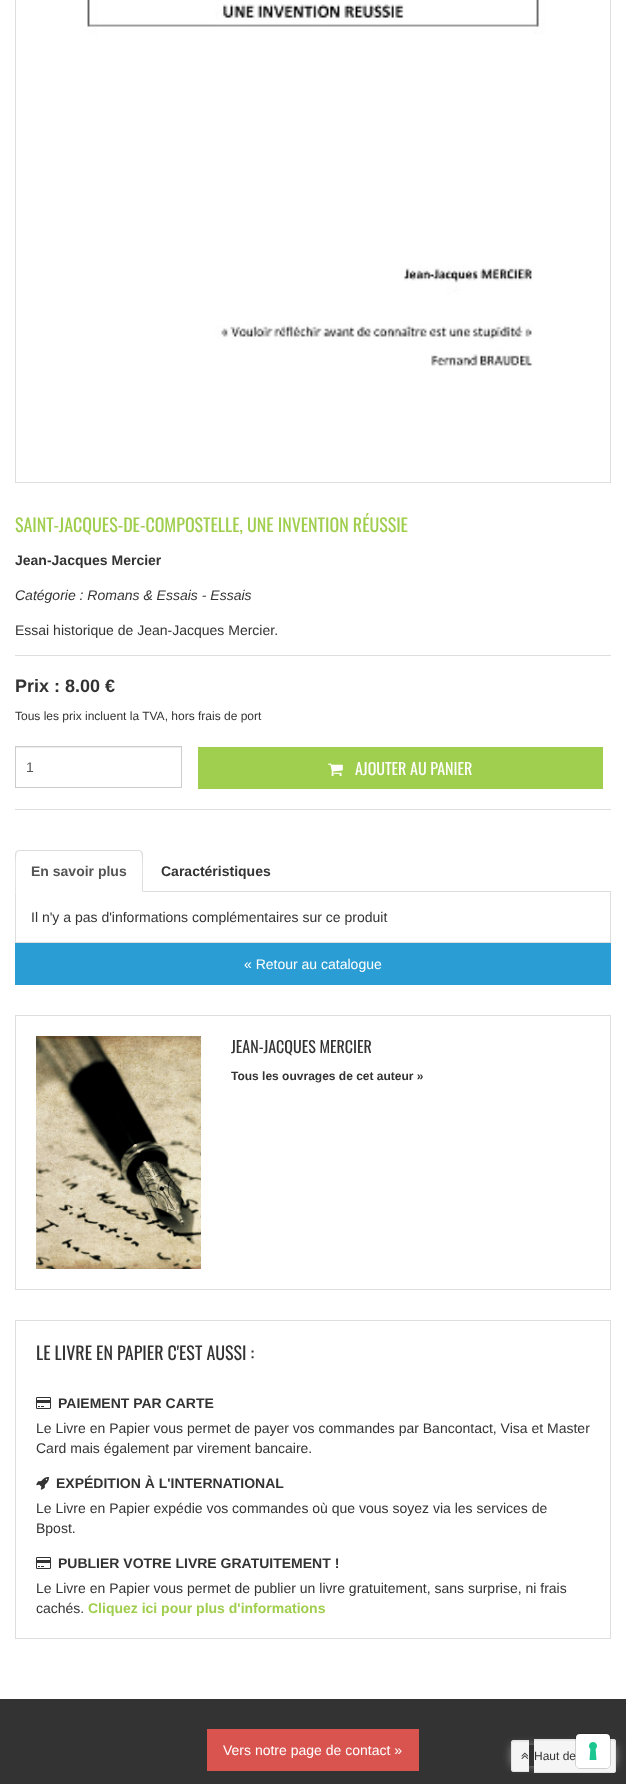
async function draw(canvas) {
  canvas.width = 626;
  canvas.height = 1784;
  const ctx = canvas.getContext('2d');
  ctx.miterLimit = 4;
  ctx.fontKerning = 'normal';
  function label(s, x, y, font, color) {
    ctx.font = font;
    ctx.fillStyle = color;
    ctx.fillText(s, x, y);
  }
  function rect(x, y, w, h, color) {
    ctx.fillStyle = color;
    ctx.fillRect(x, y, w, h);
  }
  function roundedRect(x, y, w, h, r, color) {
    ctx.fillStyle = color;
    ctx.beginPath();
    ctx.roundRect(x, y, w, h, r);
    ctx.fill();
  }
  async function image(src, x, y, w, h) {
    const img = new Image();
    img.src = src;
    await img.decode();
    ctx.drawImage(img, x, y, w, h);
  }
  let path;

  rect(0, 0, 626, 1784, '#fff');
  ctx.strokeStyle = '#dedede';
  ctx.strokeRect(15.5, -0.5, 595, 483);
  await image('assets/img1.png', 87, 0, 458, 366);
  label('SAINT-JACQUES-DE-COMPOSTELLE, UNE INVENTION RÉUSSIE', 15, 532, '18px Oswald', '#a0ce4e');
  label('Jean-Jacques Mercier', 15, 565, 'bold 14px Liberation Sans', '#333');
  label('Catégorie : Romans & Essais - Essais', 15, 600, 'italic 14px Liberation Sans', '#333');
  label('Essai historique de Jean-Jacques Mercier.', 15, 635, '14px Liberation Sans', '#333');
  rect(15, 655, 596, 1, '#dedede');
  rect(15, 809, 596, 1, '#dedede');
  label('Prix : 8.00 €', 15, 692, 'bold 18px Liberation Sans', '#333');
  label('Tous les prix incluent la TVA, hors frais de port', 15, 720, '12px Liberation Sans', '#333');
  rect(16, 747, 165, 1, '#ececec');
  ctx.strokeStyle = '#ccc';
  ctx.strokeRect(15.5, 746.5, 166, 41);
  label('1', 26, 772, '14px Liberation Sans', '#555');
  rect(198, 747, 405, 42, '#a0ce4e');
  await image('assets/img2.png', 328, 763, 15, 14);
  label('AJOUTER AU PANIER', 355, 775, '16px Oswald', '#fff');
  rect(143, 891, 468, 1, '#ddd');
  path = new Path2D('M19 850L16 851L17 852L19 851H139L141 852L142 851L139 850Z');
  ctx.fill(path);
  path = new Path2D('M143 892V854C143 853 142 852 142 851L141 852C143 854 142 886 142 891Z');
  ctx.fill(path);
  path = new Path2D('M15 892L16 891C16 886 15 854 17 852L16 851L15 854Z');
  ctx.fill(path);
  label('En savoir plus', 31, 876, 'bold 14px Liberation Sans', '#555');
  label('Caractéristiques', 161, 876, 'bold 14px Liberation Sans', '#333');
  rect(610, 892, 1, 51, '#dedede');
  rect(15, 942, 596, 1, '#dedede');
  rect(15, 892, 1, 51, '#dedede');
  label('Il n\'y a pas d\'informations complémentaires sur ce produit', 31, 922, '14px Liberation Sans', '#333');
  rect(15, 943, 596, 42, '#2a9ed4');
  label('« Retour au catalogue', 244, 969, '14px Liberation Sans', '#fff');
  ctx.strokeStyle = '#dedede';
  ctx.strokeRect(15.5, 1015.5, 595, 274);
  await image('assets/img3.png', 36, 1036, 165, 233);
  label('JEAN-JACQUES MERCIER', 231, 1053, '16px Oswald', '#333');
  label('Tous les ouvrages de cet auteur »', 231, 1080, 'bold 12px Liberation Sans', '#333');
  ctx.strokeRect(15.5, 1320.5, 595, 318);
  label('LE LIVRE EN PAPIER C\'EST AUSSI :', 36, 1360, '18px Oswald', '#333');
  await image('assets/img4.png', 36, 1397, 15, 12);
  label('PAIEMENT PAR CARTE', 58, 1408, 'bold 14px Liberation Sans', '#333');
  label('Le Livre en Papier vous permet de payer vos commandes par Bancontact, Visa et Master', 36, 1433, '14px Liberation Sans', '#333');
  label('Card mais également par virement bancaire.', 36, 1453, '14px Liberation Sans', '#333');
  await image('assets/img5.png', 36, 1477, 13, 13);
  label('EXPÉDITION À L\'INTERNATIONAL', 56, 1488, 'bold 14px Liberation Sans', '#333');
  label('Le Livre en Papier expédie vos commandes où que vous soyez via les services de', 36, 1513, '14px Liberation Sans', '#333');
  label('Bpost.', 36, 1533, '14px Liberation Sans', '#333');
  await image('assets/img4.png', 36, 1557, 15, 12);
  label('PUBLIER VOTRE LIVRE GRATUITEMENT !', 58, 1568, 'bold 14px Liberation Sans', '#333');
  label('Le Livre en Papier vous permet de publier un livre gratuitement, sans surprise, ni frais', 36, 1593, '14px Liberation Sans', '#333');
  label('cachés.', 36, 1613, '14px Liberation Sans', '#333');
  label('Cliquez ici pour plus d\'informations', 88, 1613, 'bold 14px Liberation Sans', '#a0ce4e');
  rect(0, 1699, 626, 85, '#333');
  rect(207, 1729, 212, 42, '#d9534f');
  label('Vers notre page de contact »', 223, 1755, '14px Liberation Sans', '#fff');
  ctx.save();
  path = new Path2D('M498 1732H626V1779H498ZM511 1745H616V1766H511Z');
  ctx.clip(path, 'evenodd');
  ctx.fillStyle = '#888';
  ctx.filter = 'blur(4px)';
  ctx.beginPath();
  ctx.rect(511, 1745, 105, 21);
  ctx.fill();
  ctx.filter = 'none';
  ctx.restore();
  ctx.fillStyle = '#f5f5f5';
  ctx.beginPath();
  ctx.roundRect(511, 1740, 18, 32, [3, 0, 0, 3]);
  ctx.fill();
  ctx.fillStyle = '#e9e9e9';
  path = new Path2D('M514 1742H529V1741H514C513 1741 512 1742 512 1743Z');
  ctx.fill(path);
  ctx.fillStyle = '#e3e3e3';
  path = new Path2D('M514 1740H529V1772H514C512.5 1772 511 1770.5 511 1769V1743C511 1741.5 512.5 1740 514 1740ZM514 1741H529V1771H514C513 1771 512 1770 512 1769V1743C512 1742 513 1741 514 1741Z');
  ctx.fill(path, 'evenodd');
  ctx.fillStyle = '#f5f5f5';
  ctx.beginPath();
  ctx.roundRect(534, 1739, 82, 34, [0, 3, 3, 0]);
  ctx.fill();
  ctx.fillStyle = '#e9e9e9';
  path = new Path2D('M534 1741H613C614 1741 615 1742 615 1743V1742C615 1741 614 1740 613 1740H534Z');
  ctx.fill(path);
  ctx.fillStyle = '#e3e3e3';
  path = new Path2D('M534 1739H613C615 1739 616 1740 616 1742V1770C616 1772 615 1773 613 1773H534ZM534 1740H613C614 1740 615 1741 615 1742V1770C615 1771 614 1772 613 1772H534Z');
  ctx.fill(path, 'evenodd');
  await image('assets/img6.png', 521, 1752, 8, 7);
  label('Haut de', 534, 1760, '12px Liberation Sans', '#333');
  ctx.beginPath();
  ctx.roundRect(575.5, 1733.5, 35, 35, 4.5);
  ctx.strokeStyle = '#00000026';
  ctx.stroke();
  roundedRect(576, 1734, 34, 34, 4, '#fff');
  await image('assets/img7.png', 589, 1742, 8, 18);
}

draw(document.querySelector('canvas'));
